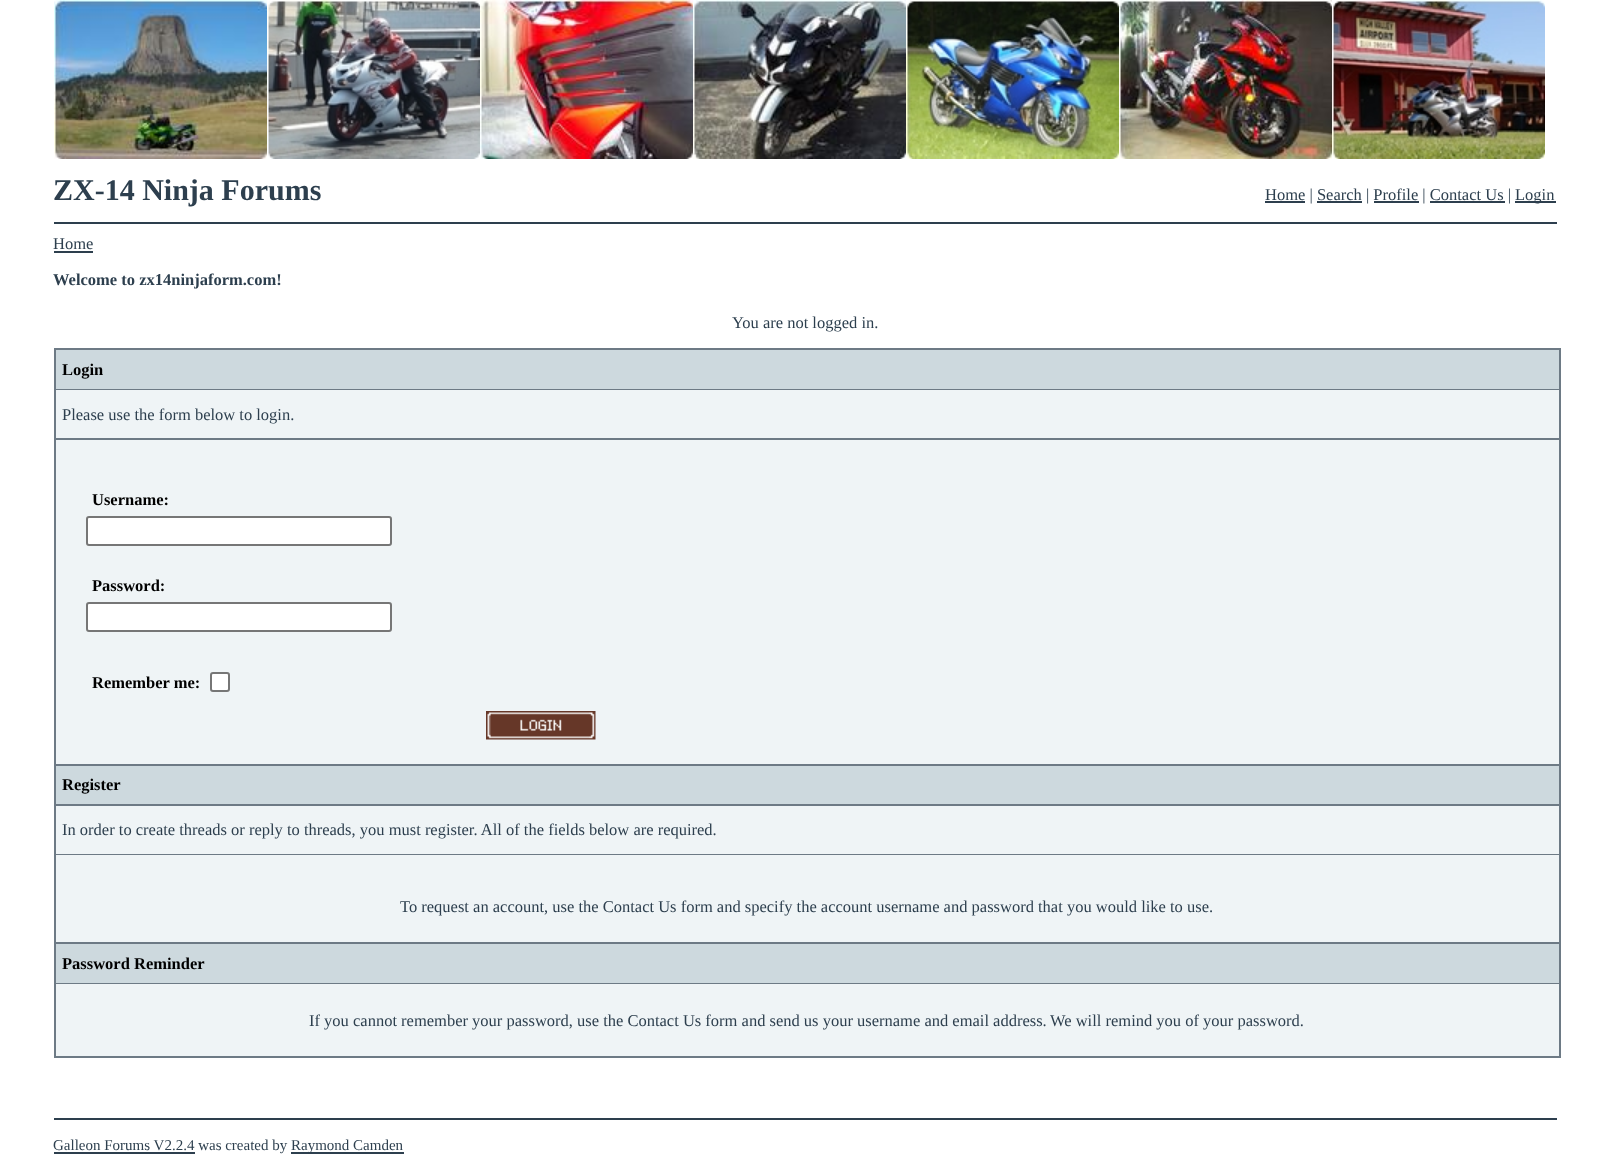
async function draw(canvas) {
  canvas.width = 1609;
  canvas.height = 1158;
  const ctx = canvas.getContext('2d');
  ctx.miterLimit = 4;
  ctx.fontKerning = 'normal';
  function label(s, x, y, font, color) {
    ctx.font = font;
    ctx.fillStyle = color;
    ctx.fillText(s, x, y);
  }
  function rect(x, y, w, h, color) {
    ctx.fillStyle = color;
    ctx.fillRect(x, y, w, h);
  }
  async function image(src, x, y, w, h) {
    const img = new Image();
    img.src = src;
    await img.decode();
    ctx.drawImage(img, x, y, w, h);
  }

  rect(0, 0, 1609, 1158, '#fff');
  await image('assets/img1.png', 54, 0, 213, 159);
  await image('assets/img2.png', 267, 0, 213, 159);
  await image('assets/img3.png', 480, 0, 213, 159);
  await image('assets/img4.png', 693, 0, 213, 159);
  await image('assets/img5.png', 906, 0, 213, 159);
  await image('assets/img6.png', 1119, 0, 213, 159);
  await image('assets/img7.png', 1332, 0, 213, 159);
  rect(54, 222, 1503, 2, '#2d3f4e');
  label('ZX-14 Ninja Forums', 53, 200, 'bold 30px Liberation Serif', '#2d3f4e');
  rect(1265, 201, 40, 2, '#2d3f4e');
  label('Home | Search | Profile | Contact Us |', 1265, 200, '16.5px Liberation Serif', '#2d3f4e');
  rect(1515, 201, 41, 2, '#2d3f4e');
  label('Login', 1515, 200, '16.5px Liberation Serif', '#2d3f4e');
  rect(1317, 201, 45, 2, '#2d3f4e');
  rect(1374, 201, 45, 2, '#2d3f4e');
  rect(1430, 201, 75, 2, '#2d3f4e');
  label('Home', 53, 249, '16.5px Liberation Serif', '#2d3f4e');
  rect(54, 251, 39, 2, '#2d3f4e');
  label('Welcome to zx14ninjaform.com!', 53, 285, 'bold 16.5px Liberation Serif', '#2d3f4e');
  label('You are not logged in.', 732, 328, '16.5px Liberation Serif', '#2d3f4e');
  rect(54, 348, 1506, 2, '#6d7a85');
  rect(1559, 348, 2, 710, '#6d7a85');
  rect(54, 348, 2, 710, '#6d7a85');
  rect(56, 350, 1503, 39, '#cdd9de');
  rect(56, 389, 1503, 1, '#6d7a85');
  label('Login', 62, 375, 'bold 16.5px Liberation Serif', '#000');
  rect(56, 390, 1503, 48, '#eff4f6');
  rect(56, 438, 1503, 2, '#6d7a85');
  label('Please use the form below to login.', 62, 420, '16.5px Liberation Serif', '#2d3f4e');
  rect(56, 440, 1503, 324, '#eff4f6');
  rect(56, 764, 1503, 2, '#6d7a85');
  label('Username:', 92, 505, 'bold 16.5px Liberation Serif', '#000');
  ctx.fillStyle = '#fff';
  ctx.beginPath();
  ctx.roundRect(87, 517, 304, 28, 2);
  ctx.fill();
  ctx.strokeStyle = '#767676';
  ctx.lineWidth = 2;
  ctx.stroke();
  label('Password:', 92, 591, 'bold 16.5px Liberation Serif', '#000');
  ctx.fillStyle = '#fff';
  ctx.beginPath();
  ctx.roundRect(87, 603, 304, 28, 2);
  ctx.fill();
  ctx.stroke();
  label('Remember me:', 92, 688, 'bold 16.5px Liberation Serif', '#000');
  ctx.fillStyle = '#fff';
  ctx.beginPath();
  ctx.roundRect(211, 673, 18, 18, 2);
  ctx.fill();
  ctx.stroke();
  await image('assets/img8.png', 486, 711, 110, 29);
  rect(56, 766, 1503, 38, '#cdd9de');
  rect(56, 804, 1503, 2, '#6d7a85');
  label('Register', 62, 790, 'bold 16.5px Liberation Serif', '#000');
  rect(56, 806, 1503, 48, '#eff4f6');
  rect(56, 854, 1503, 1, '#6d7a85');
  label('In order to create threads or reply to threads, you must register. All of the fields below are required.', 62, 835, '16.5px Liberation Serif', '#2d3f4e');
  rect(56, 855, 1503, 87, '#eff4f6');
  rect(56, 942, 1503, 2, '#6d7a85');
  label('To request an account, use the Contact Us form and specify the account username and password that you would like to use.', 400, 912, '16.5px Liberation Serif', '#2d3f4e');
  rect(56, 944, 1503, 39, '#cdd9de');
  rect(56, 983, 1503, 1, '#6d7a85');
  label('Password Reminder', 62, 969, 'bold 16.5px Liberation Serif', '#000');
  rect(56, 984, 1503, 72, '#eff4f6');
  rect(56, 1056, 1503, 2, '#6d7a85');
  label('If you cannot remember your password, use the Contact Us form and send us your username and email address.', 309, 1026, '16.5px Liberation Serif', '#2d3f4e');
  label('We will remind you of your password.', 1050, 1026, '16.5px Liberation Serif', '#2d3f4e');
  rect(54, 1118, 1503, 2, '#2d3f4e');
  rect(54, 1152, 141, 2, '#2d3f4e');
  label('Galleon Forums V2.2.4 was created by', 53, 1150, '15px Liberation Serif', '#2d3f4e');
  rect(291, 1152, 113, 2, '#2d3f4e');
  label('Raymond Camden', 291, 1150, '15px Liberation Serif', '#2d3f4e');
}

draw(document.querySelector('canvas'));
